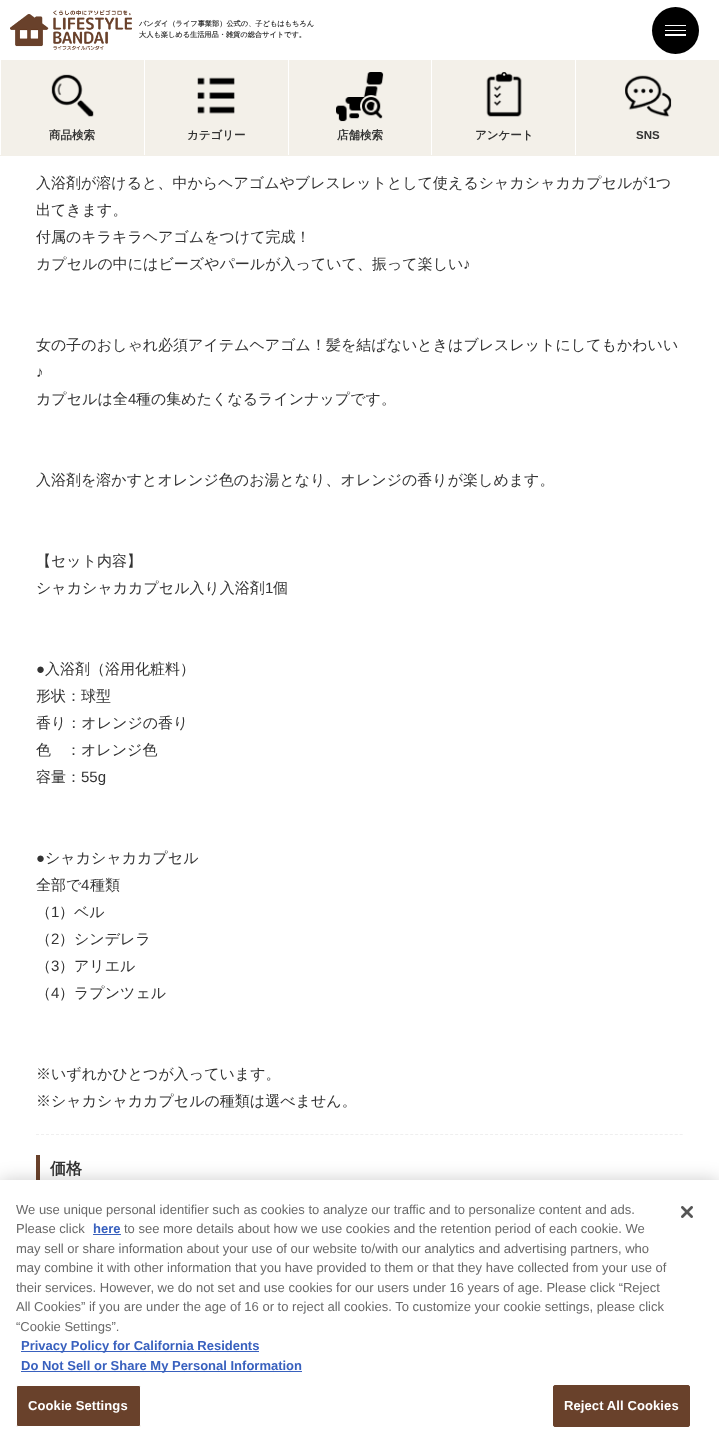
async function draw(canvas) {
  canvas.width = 719;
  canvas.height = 1441;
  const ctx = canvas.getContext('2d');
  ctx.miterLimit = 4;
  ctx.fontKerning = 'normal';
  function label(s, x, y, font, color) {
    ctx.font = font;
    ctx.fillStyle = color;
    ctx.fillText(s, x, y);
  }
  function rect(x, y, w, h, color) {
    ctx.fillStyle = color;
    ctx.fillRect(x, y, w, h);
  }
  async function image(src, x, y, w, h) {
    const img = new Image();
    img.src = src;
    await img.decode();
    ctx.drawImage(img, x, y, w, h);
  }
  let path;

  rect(0, 0, 719, 1441, '#fff');
  rect(0, 155, 719, 1, '#f3f0e9');
  await image('assets/img1.png', 10, 10, 122, 40);
  label('バンダイ（ライフ事業部）公式の、子どもはもちろん', 139, 26, 'bold 7.2px WenQuanYi Zen Hei', '#333');
  label('大人も楽しめる生活用品・雑貨の総合サイトです。', 139, 37, 'bold 7.2px WenQuanYi Zen Hei', '#333');
  ctx.fillStyle = '#000';
  ctx.beginPath();
  ctx.arc(675.5, 30.5, 23.5, 0, 2 * Math.PI);
  ctx.fill();
  rect(665, 25, 21, 1, '#fff');
  rect(665, 30, 21, 1, '#fff');
  rect(665, 34, 21, 2, '#fff');
  rect(1, 60, 718, 95, '#f3f0e9');
  await image('assets/img2.png', 51, 74, 43, 43);
  label('商品検索', 49, 139, 'bold 11.5px WenQuanYi Zen Hei', '#333');
  rect(144, 60, 1, 95, '#fff');
  await image('assets/img3.png', 197, 77, 38, 37);
  label('カテゴリー', 187, 139, 'bold 11.5px WenQuanYi Zen Hei', '#333');
  rect(288, 60, 1, 95, '#fff');
  await image('assets/img4.png', 336, 72, 48, 50);
  label('店舗検索', 337, 139, 'bold 11.5px WenQuanYi Zen Hei', '#333');
  rect(431, 60, 1, 95, '#fff');
  await image('assets/img5.png', 486, 72, 36, 45);
  label('アンケート', 475, 139, 'bold 11.5px WenQuanYi Zen Hei', '#333');
  rect(575, 60, 1, 95, '#fff');
  await image('assets/img6.png', 625, 75, 47, 42);
  label('SNS', 636, 139, 'bold 11.5px Liberation Sans', '#333');
  label('入浴剤が溶けると、中からヘアゴムやブレスレットとして使えるシャカシャカカプセルが', 36, 188, '500 15px WenQuanYi Zen Hei', '#333');
  label('1', 648, 188, '15px Liberation Sans', '#333');
  label('つ', 656, 188, '500 15px WenQuanYi Zen Hei', '#333');
  label('出てきます。', 36, 215, '500 15px WenQuanYi Zen Hei', '#333');
  label('付属のキラキラヘアゴムをつけて完成！', 36, 242, '500 15px WenQuanYi Zen Hei', '#333');
  label('カプセルの中にはビーズやパールが入っていて、振って楽しい', 36, 269, '500 15px WenQuanYi Zen Hei', '#333');
  label('♪', 463, 269, '15px Liberation Sans', '#333');
  label('女の子のおしゃれ必須アイテムヘアゴム！髪を結ばないときはブレスレットにしてもかわいい', 36, 350, '500 15px WenQuanYi Zen Hei', '#333');
  label('♪', 36, 377, '15px Liberation Sans', '#333');
  label('カプセルは全', 36, 404, '500 15px WenQuanYi Zen Hei', '#333');
  label('4', 128, 404, '15px Liberation Sans', '#333');
  label('種の集めたくなるラインナップです。', 136, 404, '500 15px WenQuanYi Zen Hei', '#333');
  label('入浴剤を溶かすとオレンジ色のお湯となり、オレンジの香りが楽しめます。', 36, 485, '500 15px WenQuanYi Zen Hei', '#333');
  label('【セット内容】', 36, 566, '500 15px WenQuanYi Zen Hei', '#333');
  label('シャカシャカカプセル入り入浴剤', 36, 593, '500 15px WenQuanYi Zen Hei', '#333');
  label('1', 265, 593, '15px Liberation Sans', '#333');
  label('個', 273, 593, '500 15px WenQuanYi Zen Hei', '#333');
  label('●', 36, 674, '15px Liberation Sans', '#333');
  label('入浴剤（浴用化粧料）', 45, 674, '500 15px WenQuanYi Zen Hei', '#333');
  label('形状：球型', 36, 701, '500 15px WenQuanYi Zen Hei', '#333');
  label('香り：オレンジの香り', 36, 728, '500 15px WenQuanYi Zen Hei', '#333');
  label('色　：オレンジ色', 36, 755, '500 15px WenQuanYi Zen Hei', '#333');
  label('容量：', 36, 782, '500 15px WenQuanYi Zen Hei', '#333');
  label('55g', 81, 782, '15px Liberation Sans', '#333');
  label('●', 36, 863, '15px Liberation Sans', '#333');
  label('シャカシャカカプセル', 45, 863, '500 15px WenQuanYi Zen Hei', '#333');
  label('全部で', 36, 890, '500 15px WenQuanYi Zen Hei', '#333');
  label('4', 81, 890, '15px Liberation Sans', '#333');
  label('種類', 90, 890, '500 15px WenQuanYi Zen Hei', '#333');
  label('（', 36, 917, '500 15px WenQuanYi Zen Hei', '#333');
  label('1', 51, 917, '15px Liberation Sans', '#333');
  label('）ベル', 59, 917, '500 15px WenQuanYi Zen Hei', '#333');
  label('（', 36, 944, '500 15px WenQuanYi Zen Hei', '#333');
  label('2', 51, 944, '15px Liberation Sans', '#333');
  label('）シンデレラ', 59, 944, '500 15px WenQuanYi Zen Hei', '#333');
  label('（', 36, 971, '500 15px WenQuanYi Zen Hei', '#333');
  label('3', 51, 971, '15px Liberation Sans', '#333');
  label('）アリエル', 59, 971, '500 15px WenQuanYi Zen Hei', '#333');
  label('（', 36, 998, '500 15px WenQuanYi Zen Hei', '#333');
  label('4', 51, 998, '15px Liberation Sans', '#333');
  label('）ラプンツェル', 59, 998, '500 15px WenQuanYi Zen Hei', '#333');
  label('※いずれかひとつが入っています。', 36, 1079, '500 15px WenQuanYi Zen Hei', '#333');
  label('※シャカシャカカプセルの種類は選べません。', 36, 1106, '500 15px WenQuanYi Zen Hei', '#333');
  path = new Path2D('M36 1134.5H683');
  ctx.strokeStyle = '#efefef';
  ctx.setLineDash([3, 1.99]);
  ctx.stroke(path);
  rect(36, 1155, 4, 29, '#69412b');
  label('価格', 50, 1174, 'bold 16px WenQuanYi Zen Hei', '#333');
  ctx.fillStyle = '#00000033';
  ctx.filter = 'blur(9px)';
  ctx.beginPath();
  ctx.rect(0, 1180, 719, 261);
  ctx.fill();
  ctx.filter = 'none';
  rect(0, 1180, 719, 261, '#fff');
  label('We use unique personal identifier such as cookies to analyze our traffic and to personalize content and ads.', 16, 1214, '13px Liberation Sans', '#696969');
  label('Please click', 16, 1233, '13px Liberation Sans', '#696969');
  label('here', 93, 1233, 'bold 13px Liberation Sans', '#3860be');
  rect(93, 1234, 28, 1, '#3860be');
  label('to see more details about how we use cookies and the retention period of each cookie. We', 124, 1233, '13px Liberation Sans', '#696969');
  label('may sell or share information about your use of our website to/with our analytics and advertising partners, who', 16, 1253, '13px Liberation Sans', '#696969');
  label('may combine it with other information that you have provided to them or that they have collected from your use of', 16, 1272, '13px Liberation Sans', '#696969');
  label('their services. However, we do not set and use cookies for our users under 16 years of age. Please click “Reject', 16, 1292, '13px Liberation Sans', '#696969');
  label('All Cookies” if you are under the age of 16 or to reject all cookies. To customize your cookie settings, please click', 16, 1311, '13px Liberation Sans', '#696969');
  label('“Cookie Settings”.', 16, 1331, '13px Liberation Sans', '#696969');
  rect(21, 1351, 238, 1, '#3860be');
  label('Privacy Policy for California Residents', 21, 1350, 'bold 13px Liberation Sans', '#3860be');
  rect(21, 1371, 281, 1, '#3860be');
  label('Do Not Sell or Share My Personal Information', 21, 1370, 'bold 13px Liberation Sans', '#3860be');
  ctx.fillStyle = '#69412b';
  ctx.beginPath();
  ctx.roundRect(16.5, 1385.5, 124, 41, 1.5);
  ctx.fill();
  ctx.strokeStyle = '#fff';
  ctx.setLineDash([]);
  ctx.stroke();
  ctx.letterSpacing = '0.1px';
  label('Cookie Settings', 28, 1410, 'bold 13px Liberation Sans', '#fff');
  ctx.fillStyle = '#69412b';
  ctx.beginPath();
  ctx.roundRect(553.5, 1385.5, 136, 41, 1.5);
  ctx.fill();
  ctx.strokeStyle = '#69412b';
  ctx.stroke();
  label('Reject All Cookies', 564, 1410, 'bold 13px Liberation Sans', '#fff');
  await image('assets/img7.png', 681, 1206, 12, 12);
}

draw(document.querySelector('canvas'));
